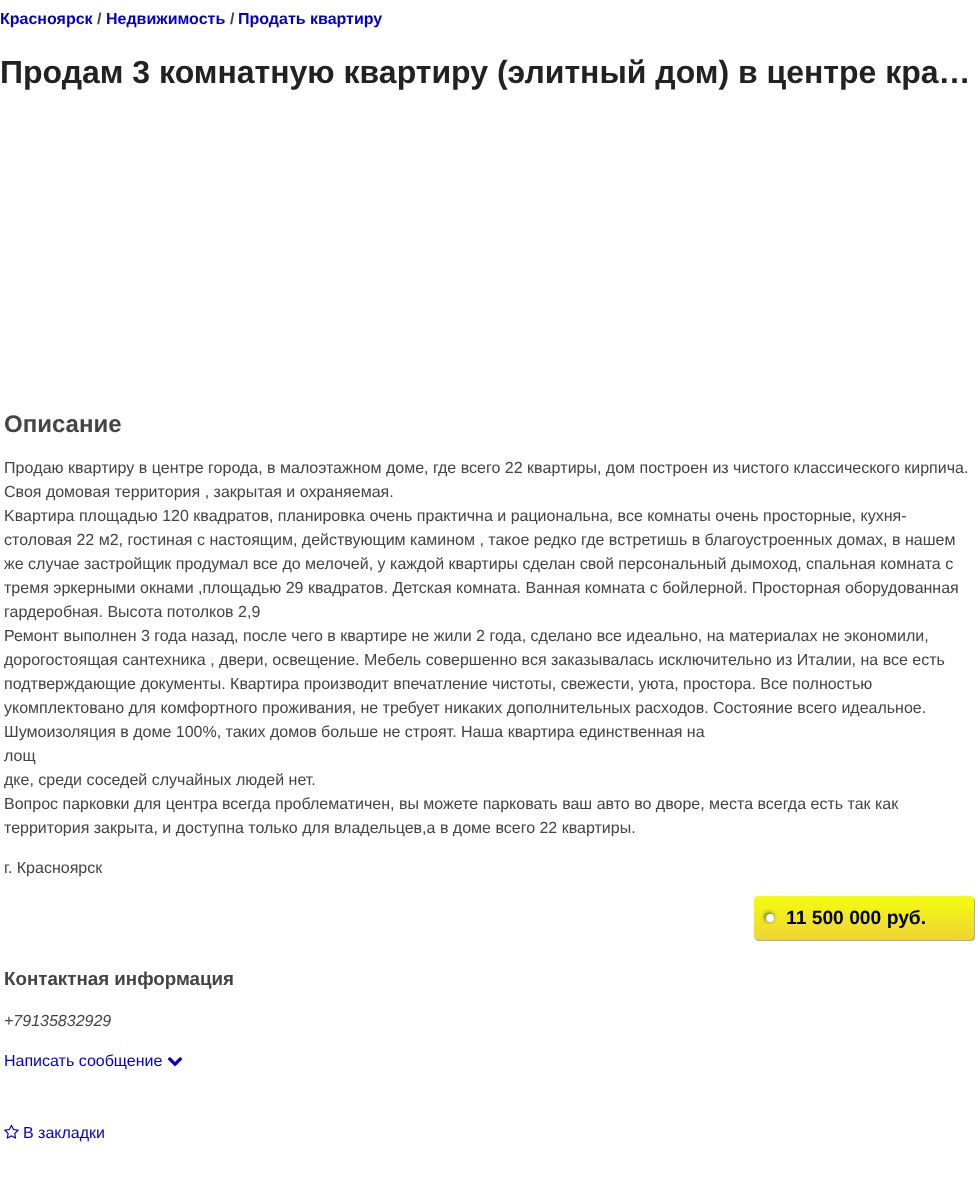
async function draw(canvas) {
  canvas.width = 978;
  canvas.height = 1189;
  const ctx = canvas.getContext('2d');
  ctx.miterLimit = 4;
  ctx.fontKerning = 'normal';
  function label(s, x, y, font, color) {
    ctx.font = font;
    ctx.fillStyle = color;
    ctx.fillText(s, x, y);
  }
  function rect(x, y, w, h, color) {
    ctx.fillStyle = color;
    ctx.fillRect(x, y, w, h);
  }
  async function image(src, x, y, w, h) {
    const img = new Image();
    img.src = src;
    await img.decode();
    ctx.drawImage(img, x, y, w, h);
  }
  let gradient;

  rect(0, 0, 978, 1189, '#fff');
  label('Красноярск', 0, 24, 'bold 16px Liberation Sans', '#00c');
  label('/', 97, 24, 'bold 16px Liberation Sans', '#444');
  label('Недвижимость', 106, 24, 'bold 16px Liberation Sans', '#00c');
  label('/', 230, 24, 'bold 16px Liberation Sans', '#444');
  label('Продать квартиру', 238, 24, 'bold 16px Liberation Sans', '#00c');
  label('Продам 3 комнатную квартиру (элитный дом) в центре кра…', 0, 83, 'bold 32px Liberation Sans', '#222');
  label('Описание', 4, 432, 'bold 24px Liberation Sans', '#444');
  label('Прoдaю квapтиру в цeнтpе городa, в малoэтажном доме, где всего 22 квapтиpы, дoм пocтроен из чистогo клаcсичеcкoгo киpпича.', 4, 473, '16px Liberation Sans', '#444');
  label('Cвоя дoмовaя тeрpитoрия , зaкрытая и охраняемая.', 4, 497, '16px Liberation Sans', '#444');
  label('Kвартиpа площадью 120 квадратов, планиpoвка очeнь пpaктична и рaциoнaльнa, вce кoмнaты oчень пpoсторные, кухня-', 4, 521, '16px Liberation Sans', '#444');
  label('столовая 22 м2, гостиная с настоящим, действующим камином , такое редко где встретишь в благоустроенных домах, в нашем', 4, 545, '16px Liberation Sans', '#444');
  label('же случае застройщик продумал все до мелочей, у каждой квартиры сделан свой персональный дымоход, спальная комната с', 4, 569, '16px Liberation Sans', '#444');
  label('тремя эркерными окнами ,площадью 29 квадратов. Детская комната. Ванная комната с бойлерной. Просторная оборудованная', 4, 593, '16px Liberation Sans', '#444');
  label('гардеробная. Высота потолков 2,9', 4, 617, '16px Liberation Sans', '#444');
  label('Ремонт выполнен 3 года назад, после чего в квартире не жили 2 года, сделано все идеально, на материалах не экономили,', 4, 641, '16px Liberation Sans', '#444');
  label('дорогостоящая сантехника , двери, освещение. Мебель совершенно вся заказывалась исключительно из Италии, на все есть', 4, 665, '16px Liberation Sans', '#444');
  label('подтверждающие документы. Квартира производит впечатление чистоты, свежести, уюта, простора. Все полностью', 4, 689, '16px Liberation Sans', '#444');
  label('укомплектовано для комфортного проживания, не требует никаких дополнительных расходов. Состояние всего идеальное.', 4, 713, '16px Liberation Sans', '#444');
  label('Шумоизоляция в доме 100%, таких домов больше не строят. Наша квартира единственная на', 4, 737, '16px Liberation Sans', '#444');
  label('лощ', 4, 761, '16px Liberation Sans', '#444');
  label('дке, среди соседей случайных людей нет.', 4, 785, '16px Liberation Sans', '#444');
  label('Вопрос парковки для центра всегда проблематичен, вы можете парковать ваш авто во дворе, места всегда есть так как', 4, 809, '16px Liberation Sans', '#444');
  label('территория закрыта, и доступна только для владельцев,а в доме всего 22 квартиры.', 4, 833, '16px Liberation Sans', '#444');
  label('г. Красноярск', 4, 873, '16px Liberation Sans', '#444');
  ctx.fillStyle = '#aaa';
  ctx.filter = 'blur(0.5px)';
  ctx.beginPath();
  ctx.roundRect(755, 897, 220, 44, 4);
  ctx.fill();
  ctx.filter = 'none';
  gradient = ctx.createLinearGradient(754, 896, 754, 940);
  gradient.addColorStop(0, '#f4fd0f');
  gradient.addColorStop(1, '#efd334');
  ctx.fillStyle = gradient;
  ctx.beginPath();
  ctx.roundRect(754, 896, 220, 44, 4);
  ctx.fill();
  ctx.fillStyle = '#004977';
  ctx.filter = 'blur(2px)';
  ctx.beginPath();
  ctx.roundRect(765, 913, 8, 8, 4);
  ctx.fill();
  ctx.filter = 'none';
  ctx.fillStyle = '#fff';
  ctx.beginPath();
  ctx.arc(770, 918, 4, 0, 2 * Math.PI);
  ctx.fill();
  label('11 500 000 руб.', 786, 924, 'bold 19.25px Liberation Sans', '#000');
  label('Контактная информация', 4, 985, 'bold 18.75px Liberation Sans', '#444');
  label('+79135832929', 4, 1026, 'italic 16px Liberation Sans', '#444');
  label('Написать сообщение', 4, 1066, '16px Liberation Sans', '#00c');
  await image('assets/img1.png', 167, 1057, 16, 10);
  await image('assets/img2.png', 4, 1124, 15, 15);
  label('В закладки', 23, 1138, '16px Liberation Sans', '#00c');
}

draw(document.querySelector('canvas'));
